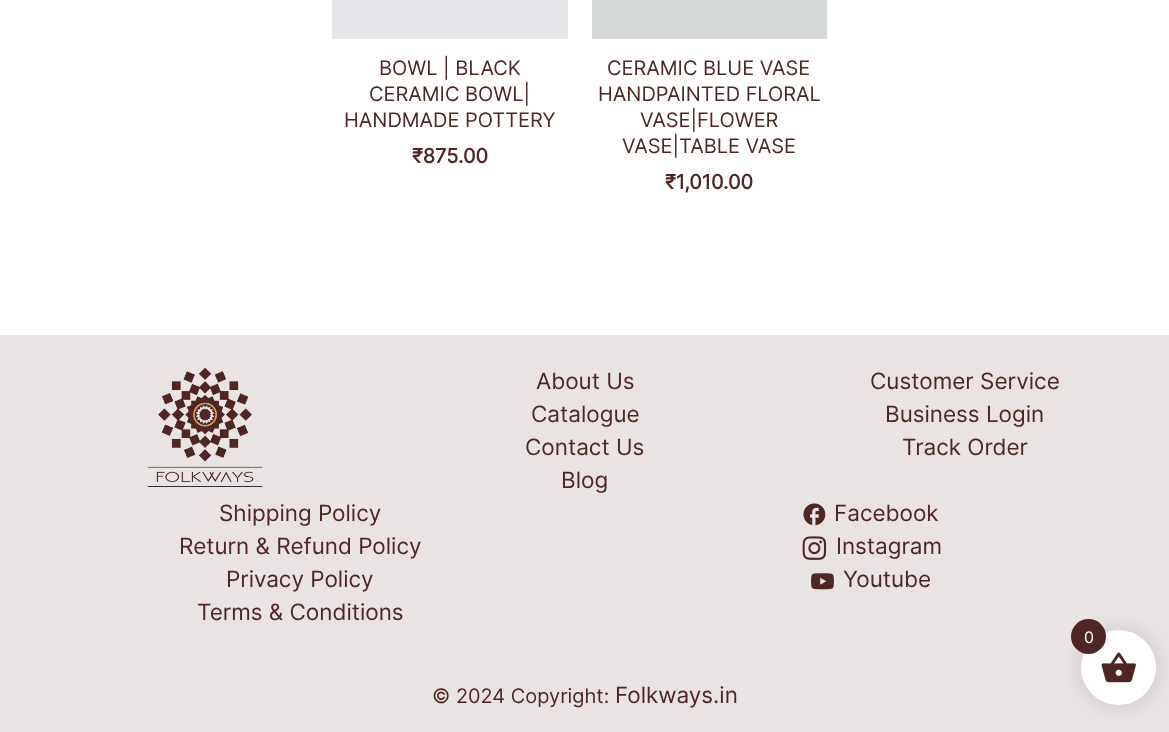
async function draw(canvas) {
  canvas.width = 1169;
  canvas.height = 732;
  const ctx = canvas.getContext('2d');
  ctx.miterLimit = 4;
  ctx.fontKerning = 'normal';
  function label(s, x, y, font, color) {
    ctx.font = font;
    ctx.fillStyle = color;
    ctx.fillText(s, x, y);
  }
  function rect(x, y, w, h, color) {
    ctx.fillStyle = color;
    ctx.fillRect(x, y, w, h);
  }
  async function image(src, x, y, w, h) {
    const img = new Image();
    img.src = src;
    await img.decode();
    ctx.drawImage(img, x, y, w, h);
  }

  rect(0, 0, 1169, 732, '#fff');
  rect(332, 0, 236, 39, '#e5e6ea');
  label('BOWL | BLACK', 379, 75, '20px Inter', '#4f2624');
  label('CERAMIC BOWL|', 369, 101, '20px Inter', '#4f2624');
  label('HANDMADE POTTERY', 344, 127, '20px Inter', '#4f2624');
  label('₹875.00', 412, 163, 'bold 20px Inter', '#4f2624');
  rect(592, 0, 235, 39, '#d5d9da');
  label('CERAMIC BLUE VASE', 607, 75, '20px Inter', '#4f2624');
  label('HANDPAINTED FLORAL', 598, 101, '20px Inter', '#4f2624');
  label('VASE|FLOWER', 640, 127, '20px Inter', '#4f2624');
  label('VASE|TABLE VASE', 622, 153, '20px Inter', '#4f2624');
  label('₹1,010.00', 665, 189, 'bold 20px Inter', '#4f2624');
  rect(0, 335, 1169, 397, '#e9e3e3');
  await image('assets/img1.png', 147, 367, 116, 120);
  label('About Us', 536, 389, '22.5px Inter', '#4f2624');
  label('Catalogue', 531, 422, '22.5px Inter', '#4f2624');
  label('Contact Us', 525, 455, '22.5px Inter', '#4f2624');
  label('Blog', 561, 488, '22.5px Inter', '#4f2624');
  label('Customer Service', 870, 389, '22.5px Inter', '#4f2624');
  label('Business Login', 885, 422, '22.5px Inter', '#4f2624');
  label('Track Order', 902, 455, '22.5px Inter', '#4f2624');
  label('Shipping Policy', 219, 521, '22.5px Inter', '#4f2624');
  label('Return & Refund Policy', 179, 554, '22.5px Inter', '#4f2624');
  label('Privacy Policy', 226, 587, '22.5px Inter', '#4f2624');
  label('Terms & Conditions', 197, 620, '22.5px Inter', '#4f2624');
  await image('assets/img2.png', 803, 503, 23, 23);
  label('Facebook', 834, 521, '22.5px Inter', '#4f2624');
  await image('assets/img3.png', 802, 536, 25, 24);
  label('Instagram', 836, 554, '22.5px Inter', '#4f2624');
  await image('assets/img4.png', 811, 573, 23, 17);
  label('Youtube', 843, 587, '22.5px Inter', '#4f2624');
  label('© 2024 Copyright:', 432, 703, '20px Inter', '#4f2624');
  label('Folkways.in', 615, 703, '22.5px Inter', '#4f2624');
  ctx.fillStyle = '#0000001a';
  ctx.filter = 'blur(9.5px)';
  ctx.beginPath();
  ctx.roundRect(1079, 628, 80, 80, 40);
  ctx.fill();
  ctx.filter = 'none';
  ctx.fillStyle = '#fff';
  ctx.beginPath();
  ctx.arc(1118.5, 667.5, 37.5, 0, 2 * Math.PI);
  ctx.fill();
  await image('assets/img5.png', 1101, 652, 35, 31);
  ctx.fillStyle = '#4f2624';
  ctx.beginPath();
  ctx.arc(1088.5, 636.5, 17.5, 0, 2 * Math.PI);
  ctx.fill();
  label('0', 1084, 643, '16px Inter', '#fff');
}

draw(document.querySelector('canvas'));
